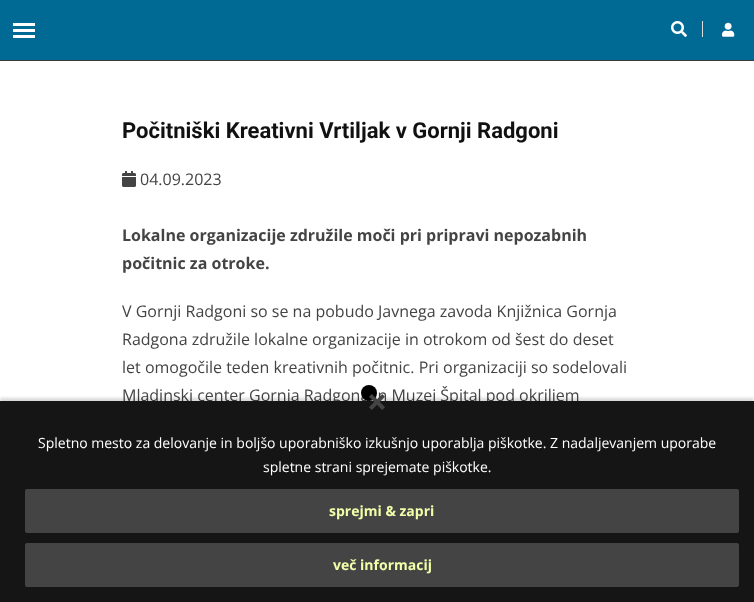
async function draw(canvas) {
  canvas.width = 754;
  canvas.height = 602;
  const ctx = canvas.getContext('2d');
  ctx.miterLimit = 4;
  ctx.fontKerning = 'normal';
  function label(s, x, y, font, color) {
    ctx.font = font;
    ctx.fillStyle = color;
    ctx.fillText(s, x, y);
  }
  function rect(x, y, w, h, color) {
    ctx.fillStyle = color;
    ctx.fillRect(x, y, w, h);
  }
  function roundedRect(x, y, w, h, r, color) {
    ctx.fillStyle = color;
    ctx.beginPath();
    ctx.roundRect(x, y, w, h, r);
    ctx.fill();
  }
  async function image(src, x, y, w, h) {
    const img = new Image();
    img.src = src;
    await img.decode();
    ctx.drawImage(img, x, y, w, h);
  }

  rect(0, 0, 754, 602, '#fff');
  rect(0, 60, 754, 1, '#3a3a3a');
  rect(0, 0, 754, 60, '#006994');
  rect(13, 23, 22, 3, '#fff');
  rect(13, 29, 22, 3, '#fff');
  rect(13, 35, 22, 3, '#fff');
  rect(702, 21, 1, 16, '#dcdcdc');
  await image('assets/img1.png', 671, 21, 16, 16);
  await image('assets/img2.png', 722, 22, 13, 15);
  label('Počitniški Kreativni Vrtiljak v Gornji Radgoni', 122, 138, 'bold 22px Roboto', '#111');
  await image('assets/img3.png', 122, 171, 14, 16);
  label('04.09.2023', 140, 185, '16px Open Sans', '#444');
  label('Lokalne organizacije združile moči pri pripravi nepozabnih', 122, 241, 'bold 16px Open Sans', '#444');
  label('počitnic za otroke.', 122, 269, 'bold 16px Open Sans', '#444');
  label('V Gornji Radgoni so se na pobudo Javnega zavoda Knjižnica Gornja', 122, 317, '16px Open Sans', '#444');
  label('Radgona združile lokalne organizacije in otrokom od šest do deset', 122, 345, '16px Open Sans', '#444');
  label('let omogočile teden kreativnih počitnic. Pri organizaciji so sodelovali', 122, 373, '16px Open Sans', '#444');
  label('Mladinski center Gornja Radgona in Muzej Špital pod okriljem', 122, 401, '16px Open Sans', '#444');
  ctx.fillStyle = '#00000026';
  ctx.filter = 'blur(1.5px)';
  ctx.beginPath();
  ctx.rect(0, 398, 754, 201);
  ctx.fill();
  ctx.filter = 'none';
  rect(0, 401, 754, 201, '#151515');
  ctx.fillStyle = '#000';
  ctx.beginPath();
  ctx.arc(369, 393, 8, 0, 2 * Math.PI);
  ctx.fill();
  await image('assets/img4.png', 369, 394, 16, 16);
  label('Spletno mesto za delovanje in boljšo uporabniško izkušnjo uporablja piškotke. Z nadaljevanjem uporabe', 38, 448, '14px Open Sans', '#fff');
  label('spletne strani sprejemate piškotke.', 263, 472, '14px Open Sans', '#fff');
  roundedRect(25, 489, 714, 44, 2, '#444');
  label('sprejmi & zapri', 329, 516, 'bold 14px Open Sans', '#f0ffaa');
  roundedRect(25, 543, 714, 44, 2, '#444');
  label('več informacij', 333, 570, 'bold 14px Open Sans', '#f0ffaa');
}

draw(document.querySelector('canvas'));
